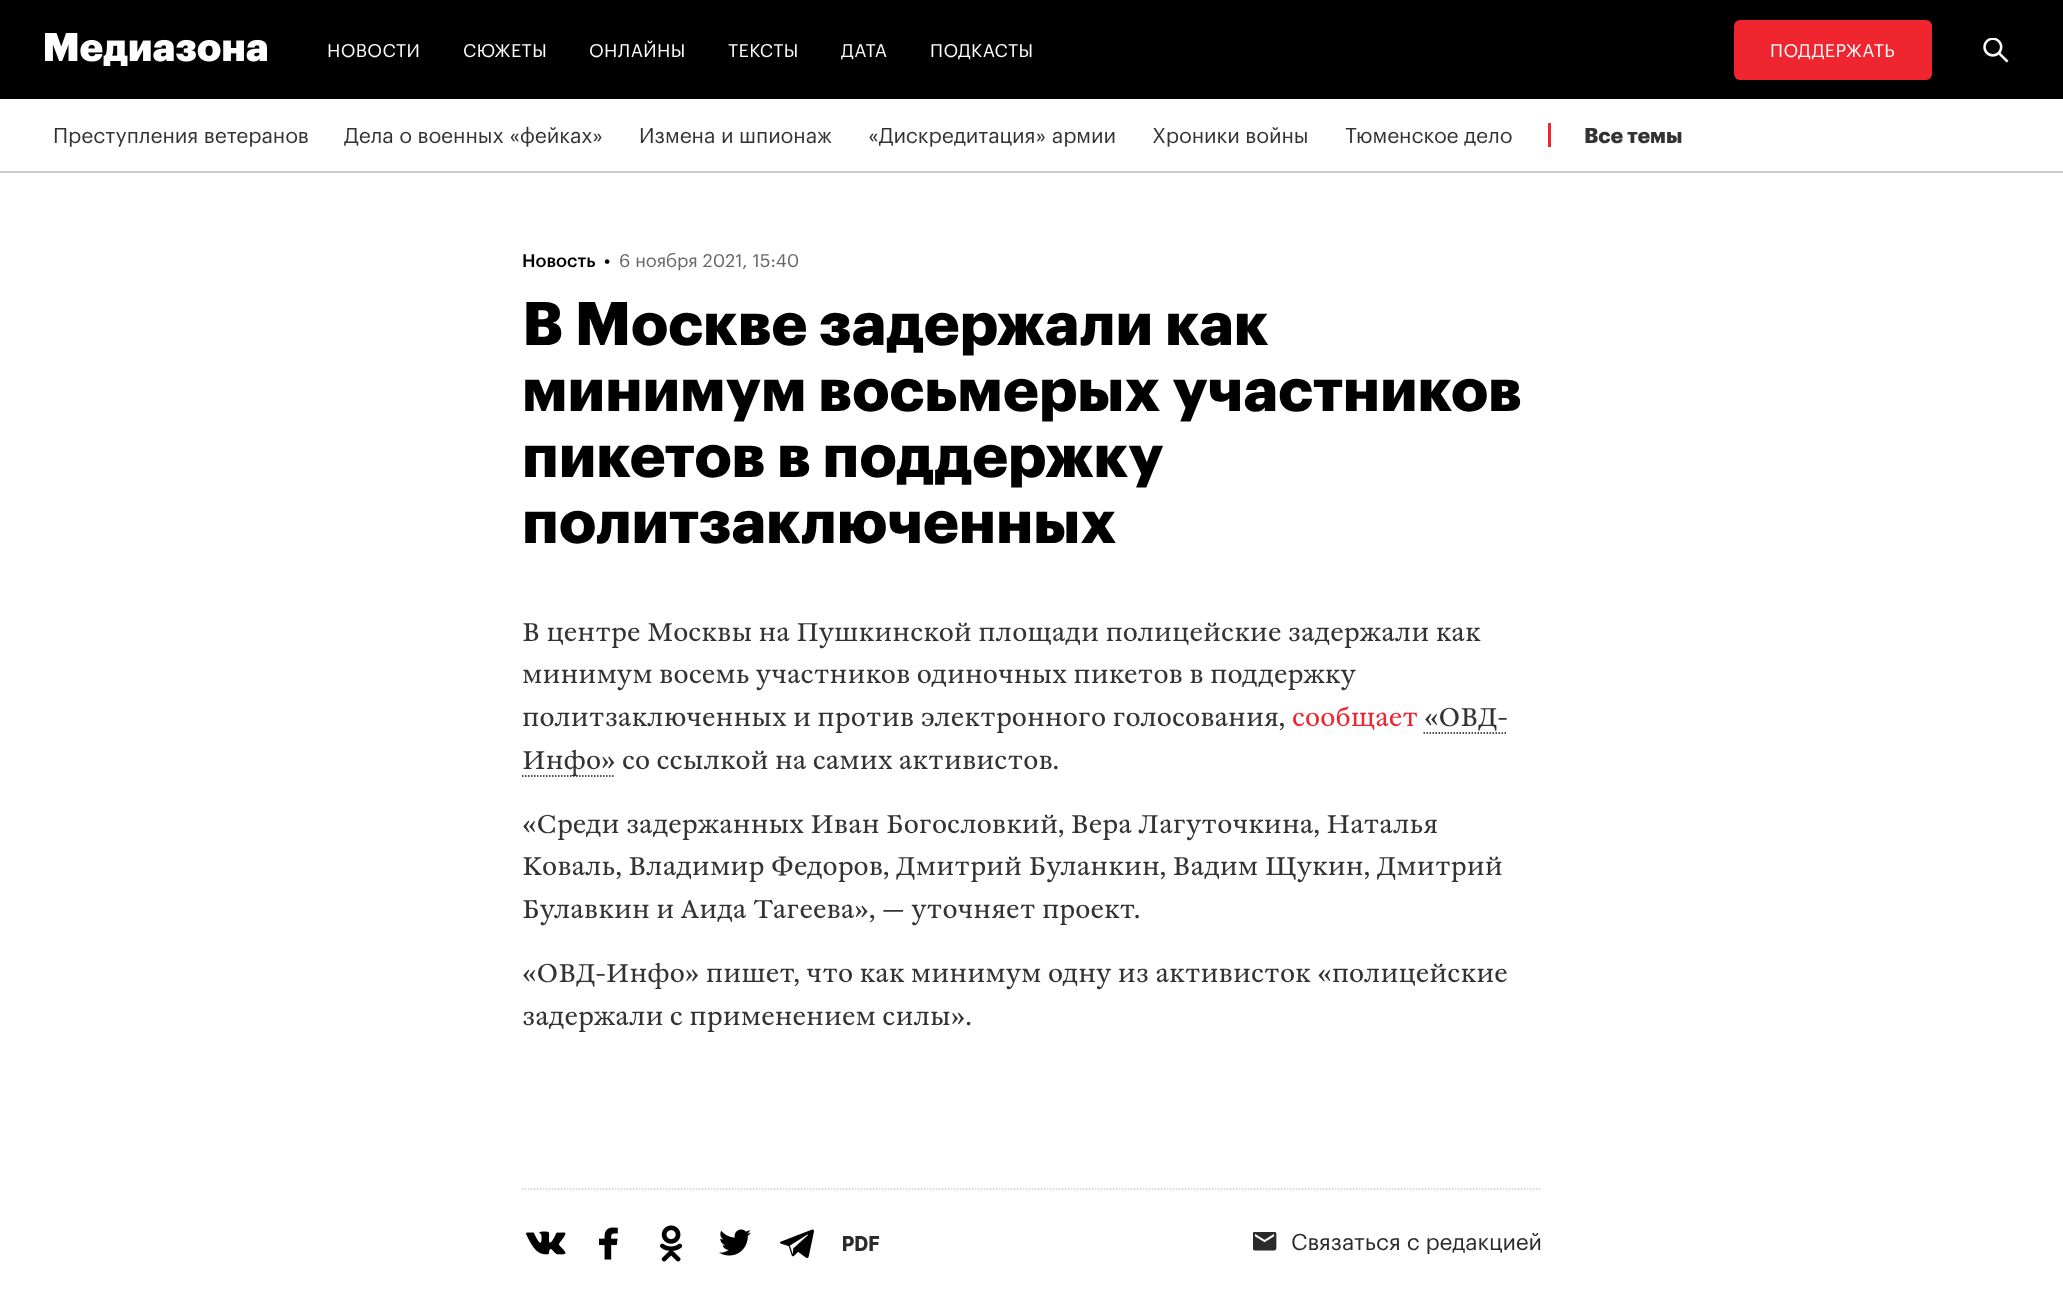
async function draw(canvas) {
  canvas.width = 2063;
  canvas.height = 1293;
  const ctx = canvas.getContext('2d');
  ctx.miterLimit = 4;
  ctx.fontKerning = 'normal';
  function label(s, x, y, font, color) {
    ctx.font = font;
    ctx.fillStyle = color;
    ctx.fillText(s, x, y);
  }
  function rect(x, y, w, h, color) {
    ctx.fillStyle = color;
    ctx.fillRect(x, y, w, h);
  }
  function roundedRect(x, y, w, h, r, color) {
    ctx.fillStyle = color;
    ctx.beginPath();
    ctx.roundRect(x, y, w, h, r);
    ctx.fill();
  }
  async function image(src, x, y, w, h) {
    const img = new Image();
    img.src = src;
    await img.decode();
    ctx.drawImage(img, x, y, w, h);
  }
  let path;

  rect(0, 0, 2063, 1293, '#fff');
  rect(0, 0, 2063, 99, '#000');
  await image('assets/img1.png', 45, 33, 33, 28);
  await image('assets/img2.png', 80, 39, 187, 27);
  ctx.letterSpacing = '0.5px';
  label('НОВОСТИ', 327, 57, '18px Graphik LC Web', '#fff');
  label('СЮЖЕТЫ', 463, 57, '18px Graphik LC Web', '#fff');
  label('ОНЛАЙНЫ', 589, 57, '18px Graphik LC Web', '#fff');
  label('ТЕКСТЫ', 728, 57, '18px Graphik LC Web', '#fff');
  label('ДАТА', 841, 57, '18px Graphik LC Web', '#fff');
  label('ПОДКАСТЫ', 930, 57, '18px Graphik LC Web', '#fff');
  roundedRect(1734, 20, 198, 60, 6, '#ef2530');
  label('ПОДДЕРЖАТЬ', 1770, 57, '18px Graphik LC Web', '#fff');
  await image('assets/img3.png', 1983, 38, 26, 25);
  rect(0, 171, 2063, 2, '#ccc');
  ctx.letterSpacing = '0px';
  label('Преступления ветеранов', 53, 143, '21px Graphik LC Web', '#333');
  label('Дела о военных «фейках»', 344, 143, '21px Graphik LC Web', '#333');
  label('Измена и шпионаж', 639, 143, '21px Graphik LC Web', '#333');
  label('«Дискредитация» армии', 868, 143, '21px Graphik LC Web', '#333');
  label('Хроники войны', 1152, 143, '21px Graphik LC Web', '#333');
  label('Тюменское дело', 1345, 143, '21px Graphik LC Web', '#333');
  rect(1548, 123, 3, 24, '#ef2530');
  label('Все темы', 1584, 143, 'bold 21px Graphik LC Web', '#333');
  label('Новость', 522, 267, '500 18px Graphik LC Web', '#000');
  label('•', 604, 267, '500 18px Graphik LC Web', '#000');
  label('6 ноября 2021, 15:40', 619, 267, '18px Graphik LC Web', '#666');
  label('В Москве задержали как', 522, 345, 'bold 60px Graphik LC Web', '#000');
  label('минимум восьмерых участников', 522, 411, 'bold 60px Graphik LC Web', '#000');
  label('пикетов в поддержку', 522, 477, 'bold 60px Graphik LC Web', '#000');
  label('политзаключенных', 522, 543, 'bold 60px Graphik LC Web', '#000');
  label('В центре Москвы на Пушкинской площади полицейские задержали как', 522, 641, '25.5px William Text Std', '#333');
  label('минимум восемь участников одиночных пикетов в поддержку', 522, 683, '25.5px William Text Std', '#333');
  label('политзаключенных и против электронного голосования,', 522, 726, '25.5px William Text Std', '#333');
  label('сообщает', 1292, 726, '25.5px William Text Std', '#ef2530');
  label('«ОВД-', 1424, 726, '25.5px William Text Std', '#333');
  path = new Path2D('M1423.5 733H1507.5');
  ctx.strokeStyle = '#151515';
  ctx.lineWidth = 1.5;
  ctx.setLineDash([1.5, 1.5]);
  ctx.stroke(path);
  path = new Path2D('M522 776H615');
  ctx.stroke(path);
  label('Инфо» со ссылкой на самих активистов.', 522, 769, '25.5px William Text Std', '#333');
  label('«Среди задержанных Иван Богословкий, Вера Лагуточкина, Наталья', 522, 833, '25.5px William Text Std', '#333');
  label('Коваль, Владимир Федоров, Дмитрий Буланкин, Вадим Щукин, Дмитрий', 522, 875, '25.5px William Text Std', '#333');
  label('Булавкин и Аида Тагеева», — уточняет проект.', 522, 918, '25.5px William Text Std', '#333');
  label('«ОВД-Инфо» пишет, что как минимум одну из активисток «полицейские', 522, 982, '25.5px William Text Std', '#333');
  label('задержали с применением силы».', 522, 1025, '25.5px William Text Std', '#333');
  path = new Path2D('M522 1189H1542');
  ctx.strokeStyle = '#ccc';
  ctx.stroke(path);
  await image('assets/img4.png', 526, 1231, 40, 24);
  await image('assets/img5.png', 599, 1227, 19, 33);
  await image('assets/img6.png', 660, 1225, 23, 37);
  await image('assets/img7.png', 719, 1229, 32, 27);
  await image('assets/img8.png', 780, 1229, 34, 29);
  await image('assets/img9.png', 843, 1236, 36, 15);
  await image('assets/img10.png', 1253, 1232, 24, 19);
  label('Связаться с редакцией', 1291, 1250, '22.5px Graphik LC Web', '#2b2b2b');
}

draw(document.querySelector('canvas'));
